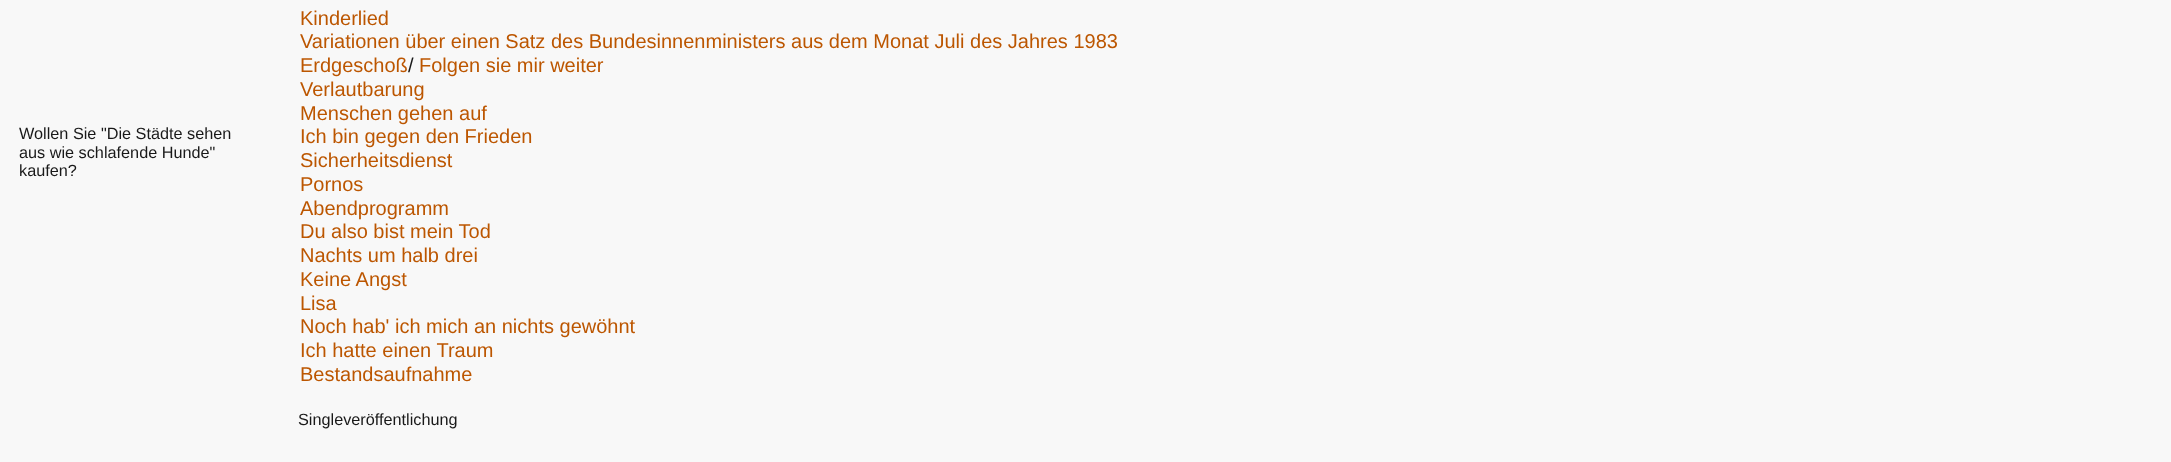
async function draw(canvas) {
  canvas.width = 2171;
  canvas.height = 462;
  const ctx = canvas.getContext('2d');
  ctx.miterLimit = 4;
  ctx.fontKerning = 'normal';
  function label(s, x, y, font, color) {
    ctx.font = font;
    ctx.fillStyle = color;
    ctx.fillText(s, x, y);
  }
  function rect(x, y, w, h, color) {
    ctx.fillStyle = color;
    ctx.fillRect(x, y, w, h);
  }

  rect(0, 0, 2171, 462, '#f8f8f8');
  label('Wollen Sie "Die Städte sehen', 19, 139, '16.25px Liberation Sans', '#191919');
  label('aus wie schlafende Hunde"', 19, 158, '16.25px Liberation Sans', '#191919');
  label('kaufen?', 19, 176, '16.25px Liberation Sans', '#191919');
  label('Kinderlied', 300, 25, '20px Liberation Sans', '#bc5600');
  label('Variationen über einen Satz des Bundesinnenministers aus dem Monat Juli des Jahres 1983', 300, 48, '20px Liberation Sans', '#bc5600');
  label('Erdgeschoß', 300, 72, '20px Liberation Sans', '#bc5600');
  label('/', 408, 72, '20px Liberation Sans', '#191919');
  label('Folgen sie mir weiter', 419, 72, '20px Liberation Sans', '#bc5600');
  label('Verlautbarung', 300, 96, '20px Liberation Sans', '#bc5600');
  label('Menschen gehen auf', 300, 120, '20px Liberation Sans', '#bc5600');
  label('Ich bin gegen den Frieden', 300, 143, '20px Liberation Sans', '#bc5600');
  label('Sicherheitsdienst', 300, 167, '20px Liberation Sans', '#bc5600');
  label('Pornos', 300, 191, '20px Liberation Sans', '#bc5600');
  label('Abendprogramm', 300, 215, '20px Liberation Sans', '#bc5600');
  label('Du also bist mein Tod', 300, 238, '20px Liberation Sans', '#bc5600');
  label('Nachts um halb drei', 300, 262, '20px Liberation Sans', '#bc5600');
  label('Keine Angst', 300, 286, '20px Liberation Sans', '#bc5600');
  label('Lisa', 300, 310, '20px Liberation Sans', '#bc5600');
  label('Noch hab\' ich mich an nichts gewöhnt', 300, 333, '20px Liberation Sans', '#bc5600');
  label('Ich hatte einen Traum', 300, 357, '20px Liberation Sans', '#bc5600');
  label('Bestandsaufnahme', 300, 381, '20px Liberation Sans', '#bc5600');
  label('Singleveröffentlichung', 298, 425, '16.25px Liberation Sans', '#191919');
}

draw(document.querySelector('canvas'));
